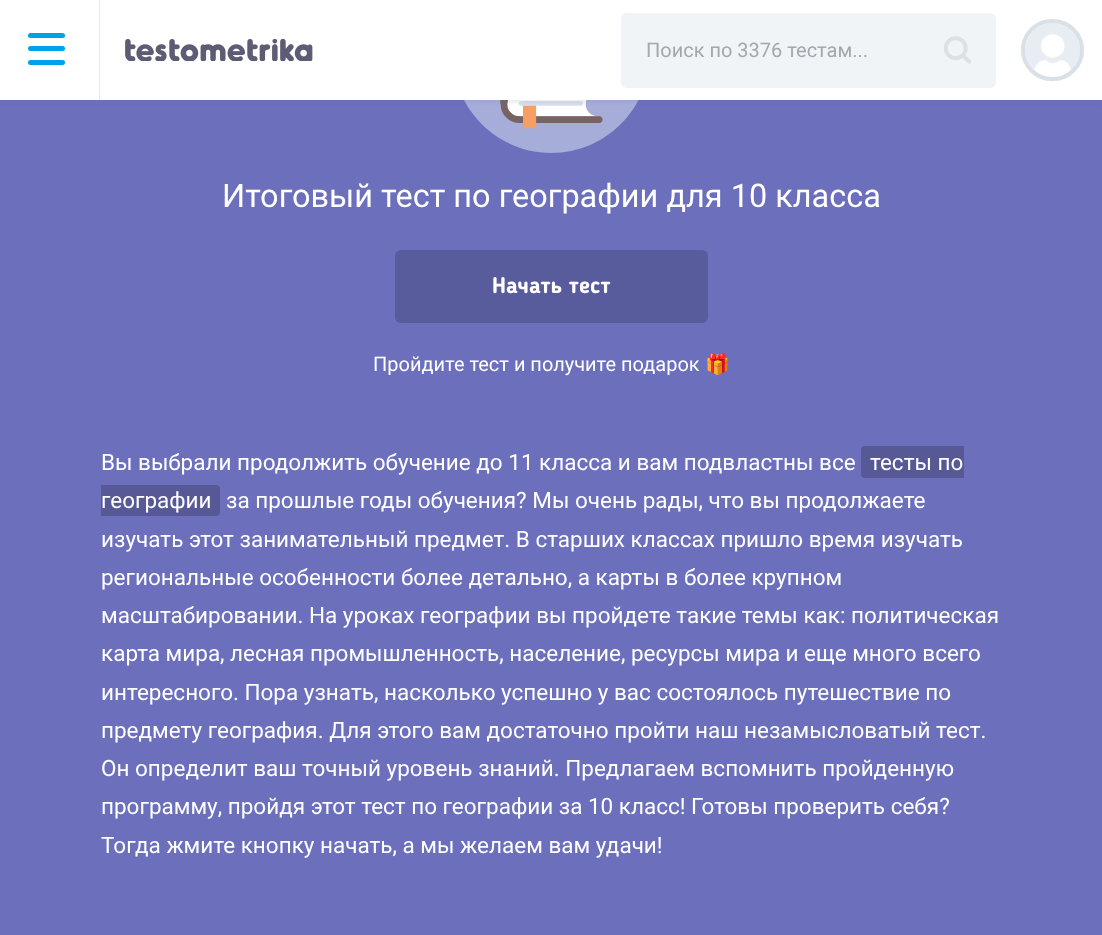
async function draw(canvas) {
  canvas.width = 1102;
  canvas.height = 935;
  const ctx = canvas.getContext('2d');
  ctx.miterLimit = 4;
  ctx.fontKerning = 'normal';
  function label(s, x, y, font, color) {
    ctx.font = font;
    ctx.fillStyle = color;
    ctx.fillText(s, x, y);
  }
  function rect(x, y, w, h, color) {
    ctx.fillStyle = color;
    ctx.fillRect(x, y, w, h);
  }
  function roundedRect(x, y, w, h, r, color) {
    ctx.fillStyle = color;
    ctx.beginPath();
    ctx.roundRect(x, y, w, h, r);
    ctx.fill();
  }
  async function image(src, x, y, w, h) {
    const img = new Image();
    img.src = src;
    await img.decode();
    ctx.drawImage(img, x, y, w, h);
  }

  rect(0, 0, 1102, 935, '#6b6fbc');
  await image('assets/img4.png', 464, 100, 175, 53);
  ctx.fillStyle = '#7675901f';
  ctx.filter = 'blur(1px)';
  ctx.beginPath();
  ctx.rect(0, 3, 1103, 100);
  ctx.fill();
  ctx.filter = 'none';
  rect(0, 0, 1102, 100, '#fff');
  roundedRect(28, 33, 37, 5, 2.5, '#00a1eb');
  roundedRect(28, 46, 37, 5, 2.5, '#00a1eb');
  roundedRect(28, 60, 37, 5, 2.5, '#00a1eb');
  rect(99, 0, 1, 100, '#eaeaea');
  await image('assets/img1.png', 125, 39, 188, 22);
  roundedRect(621, 13, 375, 75, 6, '#f1f4f7');
  label('Поиск по 3376 тестам...', 646, 57, '20px Roboto', '#a3a7ae');
  await image('assets/img2.png', 944, 36, 27, 28);
  await image('assets/img3.png', 1021, 23, 63, 59);
  ctx.beginPath();
  ctx.roundRect(1023, 21, 59, 58, 29);
  ctx.strokeStyle = '#d9e1e7';
  ctx.lineWidth = 4;
  ctx.stroke();
  label('Итоговый тест по географии для 10 класса', 222, 207, '32.5px Roboto', '#fff');
  roundedRect(395, 250, 313, 73, 6, '#595c9c');
  label('Начать тест', 492, 293, 'bold 22.5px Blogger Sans', '#fff');
  label('Пройдите тест и получите подарок', 373, 371, '20px Roboto', '#fff');
  label('🎁', 705, 371, '20px Noto Color Emoji', '#fff');
  label('Вы выбрали продолжить обучение до 11 класса и вам подвластны все', 101, 470, '22.5px Roboto', '#fff');
  ctx.fillStyle = '#565996';
  ctx.beginPath();
  ctx.roundRect(861, 446, 103, 32, [4, 0, 0, 4]);
  ctx.fill();
  label('тесты по', 870, 470, '22.5px Roboto', '#fff');
  ctx.fillStyle = '#565996';
  ctx.beginPath();
  ctx.roundRect(101, 485, 119, 31, [0, 4, 4, 0]);
  ctx.fill();
  label('географии', 101, 508, '22.5px Roboto', '#fff');
  label('за прошлые годы обучения? Мы очень рады, что вы продолжаете', 226, 508, '22.5px Roboto', '#fff');
  label('изучать этот занимательный предмет. В старших классах пришло время изучать', 101, 547, '22.5px Roboto', '#fff');
  label('региональные особенности более детально, а карты в более крупном', 101, 585, '22.5px Roboto', '#fff');
  label('масштабировании. На уроках географии вы пройдете такие темы как: политическая', 101, 623, '22.5px Roboto', '#fff');
  label('карта мира, лесная промышленность, население, ресурсы мира и еще много всего', 101, 661, '22.5px Roboto', '#fff');
  label('интересного. Пора узнать, насколько успешно у вас состоялось путешествие по', 101, 700, '22.5px Roboto', '#fff');
  label('предмету география. Для этого вам достаточно пройти наш незамысловатый тест.', 101, 738, '22.5px Roboto', '#fff');
  label('Он определит ваш точный уровень знаний. Предлагаем вспомнить пройденную', 101, 776, '22.5px Roboto', '#fff');
  label('программу, пройдя этот тест по географии за 10 класс! Готовы проверить себя?', 101, 814, '22.5px Roboto', '#fff');
  label('Тогда жмите кнопку начать, а мы желаем вам удачи!', 101, 853, '22.5px Roboto', '#fff');
}

draw(document.querySelector('canvas'));
